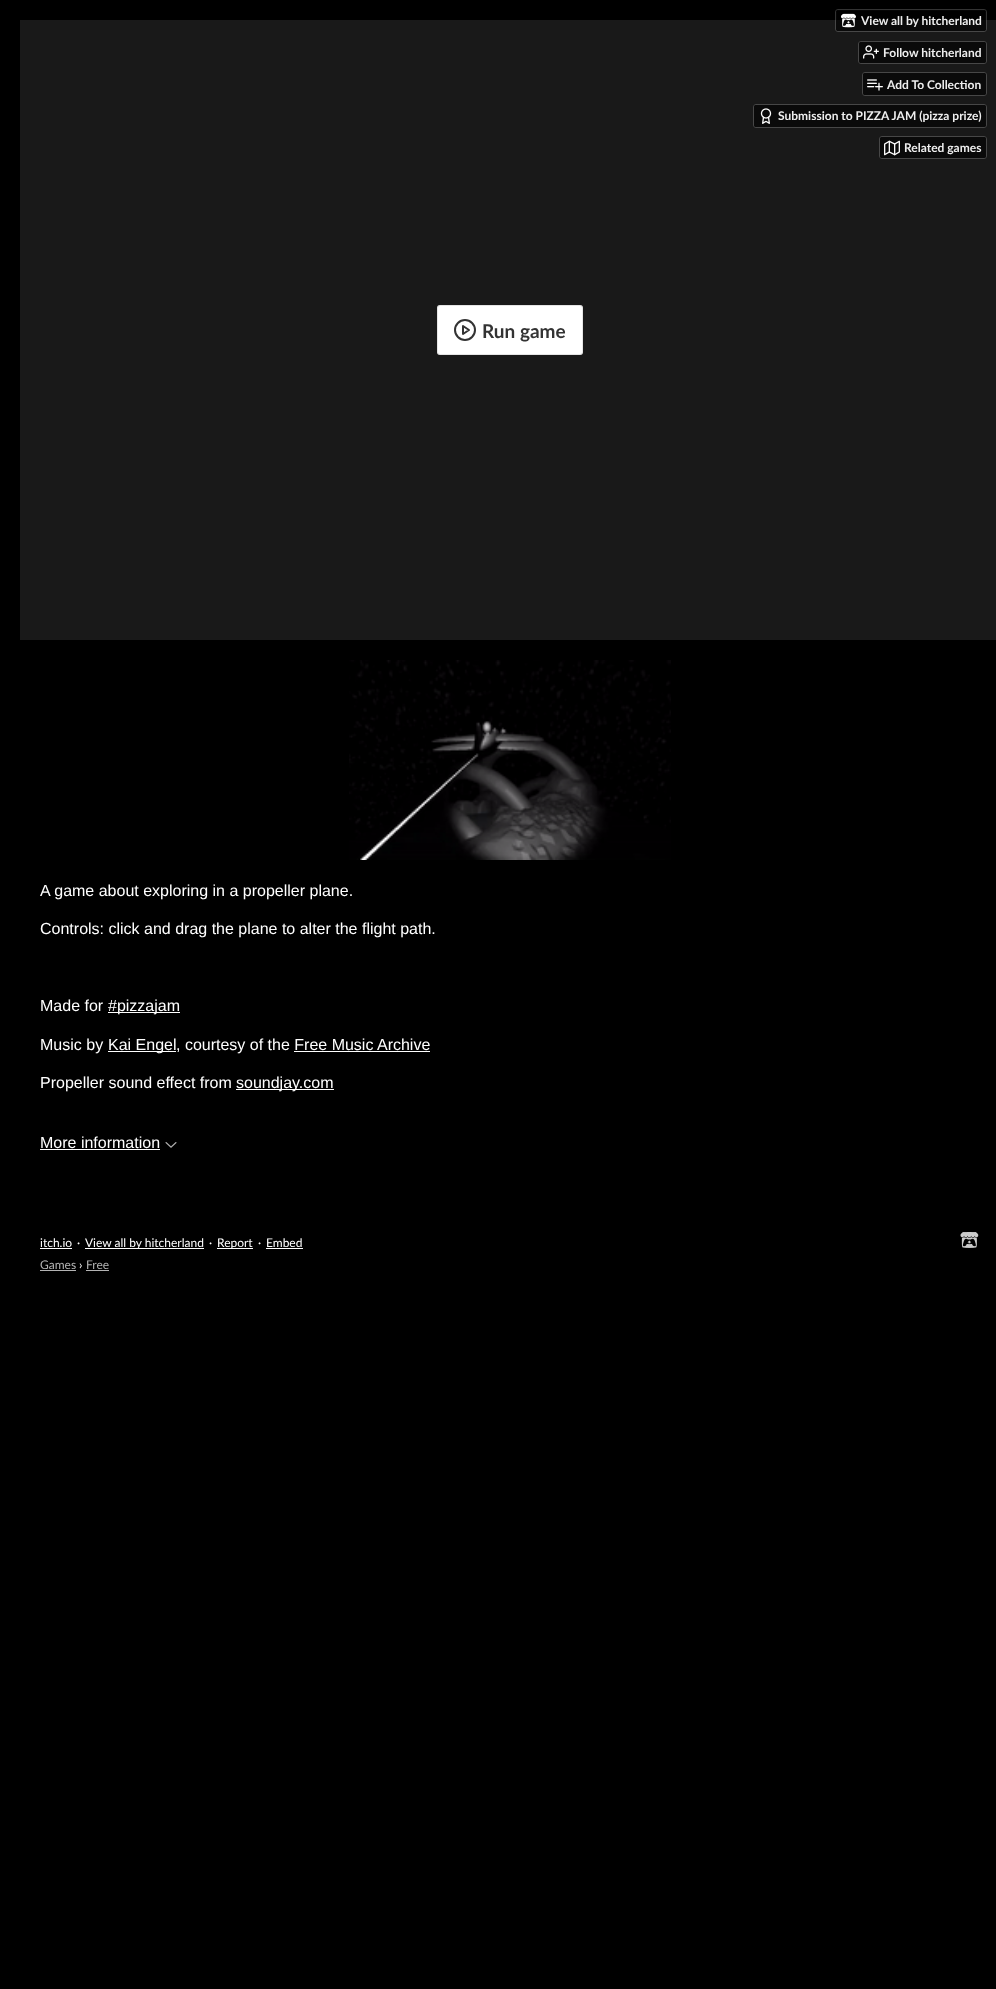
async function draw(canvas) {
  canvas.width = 996;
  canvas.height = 1989;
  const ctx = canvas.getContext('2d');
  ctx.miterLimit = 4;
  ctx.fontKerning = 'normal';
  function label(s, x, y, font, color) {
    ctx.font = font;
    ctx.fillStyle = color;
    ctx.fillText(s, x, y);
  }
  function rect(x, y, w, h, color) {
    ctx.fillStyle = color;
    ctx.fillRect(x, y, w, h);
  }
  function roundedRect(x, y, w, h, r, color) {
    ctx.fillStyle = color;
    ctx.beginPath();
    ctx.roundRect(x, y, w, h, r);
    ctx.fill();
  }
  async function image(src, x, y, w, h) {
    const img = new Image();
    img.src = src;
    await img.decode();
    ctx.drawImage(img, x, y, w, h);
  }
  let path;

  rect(0, 0, 996, 1989, '#000');
  rect(20, 20, 976, 620, '#191919');
  ctx.beginPath();
  ctx.roundRect(835.5, 9.5, 151, 22, 2.5);
  ctx.strokeStyle = '#ffffff33';
  ctx.stroke();
  roundedRect(836, 10, 150, 21, 2, '#00000099');
  ctx.beginPath();
  ctx.roundRect(836.5, 10.5, 149, 20, 1.5);
  ctx.strokeStyle = '#0a0a0a80';
  ctx.stroke();
  await image('assets/img1.png', 841, 13, 15, 15);
  label('View all by hitcherland', 861, 25, 'bold 12px Lato', '#eee');
  ctx.beginPath();
  ctx.roundRect(858.5, 41.5, 128, 22, 2.5);
  ctx.strokeStyle = '#474747';
  ctx.stroke();
  roundedRect(859, 42, 127, 21, 2, '#00000099');
  ctx.beginPath();
  ctx.roundRect(859.5, 42.5, 126, 20, 1.5);
  ctx.strokeStyle = '#0a0a0a80';
  ctx.stroke();
  await image('assets/img2.png', 863, 45, 16, 14);
  label('Follow hitcherland', 883, 57, 'bold 12px Lato', '#eee');
  ctx.beginPath();
  ctx.roundRect(862.5, 72.5, 124, 23, 2.5);
  ctx.strokeStyle = '#474747';
  ctx.stroke();
  roundedRect(863, 73, 123, 22, 2, '#00000099');
  ctx.beginPath();
  ctx.roundRect(863.5, 73.5, 122, 21, 1.5);
  ctx.strokeStyle = '#0a0a0a80';
  ctx.stroke();
  await image('assets/img3.png', 867, 79, 16, 12);
  label('Add To Collection', 887, 89, 'bold 12px Lato', '#eee');
  ctx.beginPath();
  ctx.roundRect(753.5, 104.5, 233, 23, 2.5);
  ctx.strokeStyle = '#474747';
  ctx.stroke();
  roundedRect(754, 105, 232, 22, 2, '#00000099');
  ctx.beginPath();
  ctx.roundRect(754.5, 105.5, 231, 21, 1.5);
  ctx.strokeStyle = '#0a0a0a80';
  ctx.stroke();
  await image('assets/img4.png', 760, 108, 12, 16);
  label('Submission to PIZZA JAM (pizza prize)', 778, 120, 'bold 12px Lato', '#eee');
  ctx.beginPath();
  ctx.roundRect(879.5, 136.5, 107, 22, 2.5);
  ctx.strokeStyle = '#474747';
  ctx.stroke();
  roundedRect(880, 137, 106, 21, 2, '#00000099');
  ctx.beginPath();
  ctx.roundRect(880.5, 137.5, 105, 20, 1.5);
  ctx.strokeStyle = '#0a0a0a80';
  ctx.stroke();
  await image('assets/img5.png', 884, 140, 16, 16);
  label('Related games', 904, 152, 'bold 12px Lato', '#eee');
  roundedRect(437, 305, 146, 50, 3, '#fff');
  ctx.beginPath();
  ctx.roundRect(437.5, 305.5, 145, 49, 2.5);
  ctx.strokeStyle = '#0000001a';
  ctx.stroke();
  ctx.beginPath();
  ctx.arc(465, 330, 10, 0, 2 * Math.PI);
  ctx.strokeStyle = '#333';
  ctx.lineWidth = 2;
  ctx.stroke();
  path = new Path2D('M463 326L469 330L463 334Z');
  ctx.lineCap = 'round';
  ctx.lineJoin = 'round';
  ctx.stroke(path);
  label('Run game', 482, 338, 'bold 19px Lato', '#333');
  await image('assets/img6.png', 349, 660, 322, 200);
  label('A game about exploring in a propeller plane.', 40, 896, '16px Liberation Sans', '#fff');
  label('Controls: click and drag the plane to alter the flight path.', 40, 934, '16px Liberation Sans', '#fff');
  label('Made for', 40, 1011, '16px Liberation Sans', '#fff');
  rect(108, 1012, 72, 1, '#fff');
  label('#pizzajam', 108, 1011, '16px Liberation Sans', '#fff');
  label('Music by', 40, 1050, '16px Liberation Sans', '#fff');
  rect(108, 1051, 68, 1, '#fff');
  label('Kai Engel', 108, 1050, '16px Liberation Sans', '#fff');
  label(', courtesy of the Free Music Archive', 176, 1050, '16px Liberation Sans', '#fff');
  rect(294, 1051, 136, 1, '#fff');
  label('Propeller sound effect from', 40, 1088, '16px Liberation Sans', '#fff');
  rect(236, 1089, 98, 1, '#fff');
  label('soundjay.com', 236, 1088, '16px Liberation Sans', '#fff');
  label('More information', 40, 1148, '16px Liberation Sans', '#fff');
  rect(40, 1149, 120, 1, '#fff');
  await image('assets/img7.png', 165, 1142, 12, 6);
  label('itch.io', 40, 1247, '12px Lato', '#fff');
  rect(40, 1248, 32, 1, '#fff');
  label('·', 77, 1247, '12px Lato', '#fff');
  rect(85, 1248, 119, 1, '#fff');
  label('View all by hitcherland', 85, 1247, '12px Lato', '#fff');
  label('·', 209, 1247, '12px Lato', '#fff');
  rect(217, 1248, 36, 1, '#fff');
  label('Report', 217, 1247, '12px Lato', '#fff');
  label('·', 258, 1247, '12px Lato', '#fff');
  label('Embed', 266, 1247, '12px Lato', '#fff');
  rect(266, 1248, 37, 1, '#fff');
  await image('assets/img8.png', 960, 1232, 19, 16);
  label('Games', 40, 1269, '12px Lato', '#b3b3b3');
  rect(40, 1270, 36, 1, '#b3b3b3');
  label('›', 79, 1269, '12px Lato', '#fff');
  label('Free', 86, 1269, '12px Lato', '#b3b3b3');
  rect(86, 1270, 23, 1, '#b3b3b3');
}

draw(document.querySelector('canvas'));
